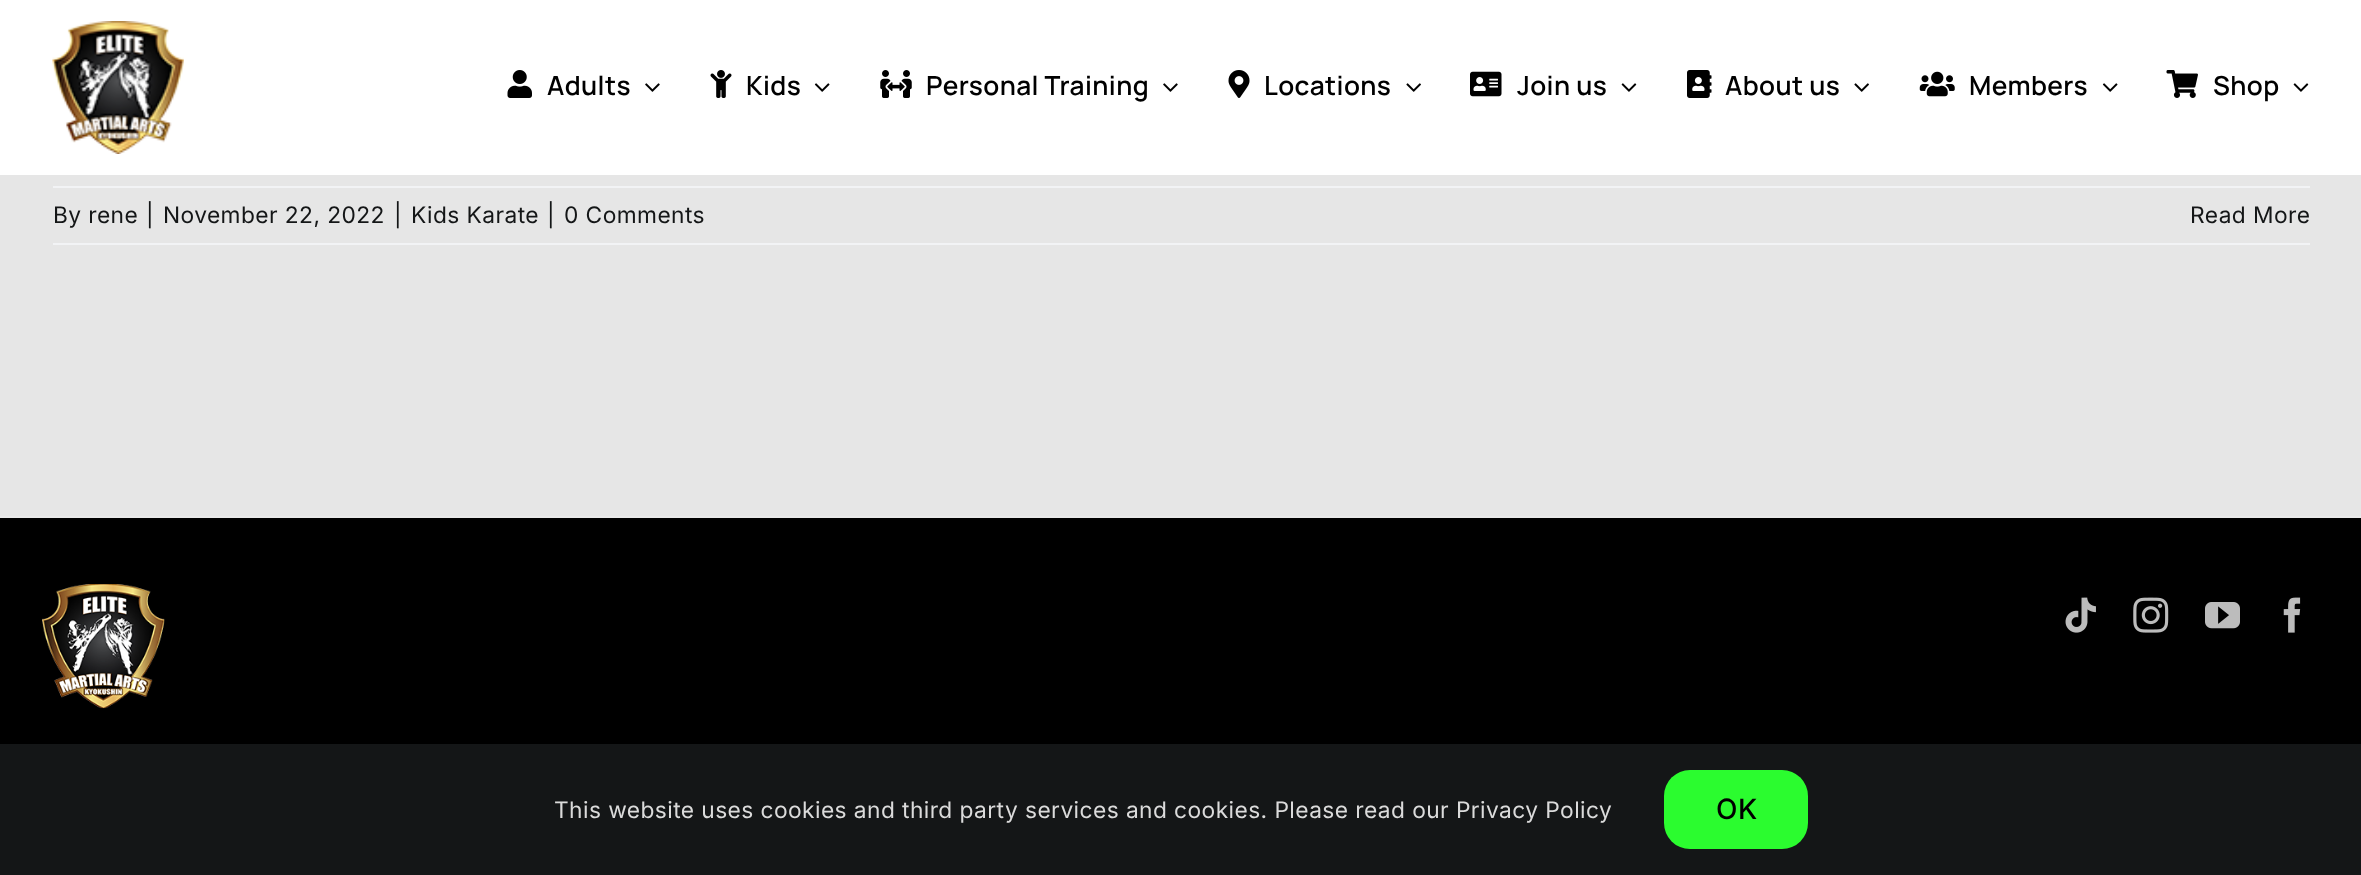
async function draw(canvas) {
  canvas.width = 2361;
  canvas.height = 875;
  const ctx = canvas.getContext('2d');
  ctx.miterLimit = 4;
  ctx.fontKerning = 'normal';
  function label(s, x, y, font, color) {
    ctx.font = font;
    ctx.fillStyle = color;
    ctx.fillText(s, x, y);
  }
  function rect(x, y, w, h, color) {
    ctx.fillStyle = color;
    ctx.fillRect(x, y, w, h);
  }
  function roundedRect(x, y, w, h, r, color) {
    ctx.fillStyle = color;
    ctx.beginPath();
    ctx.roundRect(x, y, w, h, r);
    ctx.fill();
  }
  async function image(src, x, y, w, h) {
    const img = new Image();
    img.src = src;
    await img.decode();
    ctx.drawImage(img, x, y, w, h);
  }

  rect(0, 0, 2361, 875, '#e6e6e6');
  rect(0, 0, 2361, 175, '#fff');
  await image('assets/img1.png', 52, 21, 132, 133);
  await image('assets/img2.png', 507, 70, 25, 28);
  ctx.letterSpacing = '0.4px';
  label('Adults', 547, 95, '200 26.25px Manrope', '#000');
  await image('assets/img3.png', 645, 83, 15, 9);
  await image('assets/img4.png', 710, 70, 22, 28);
  label('Kids', 746, 95, '200 26.25px Manrope', '#000');
  await image('assets/img5.png', 814, 83, 16, 9);
  await image('assets/img6.png', 880, 70, 32, 28);
  label('Personal Training', 926, 95, '200 26.25px Manrope', '#000');
  await image('assets/img3.png', 1163, 83, 15, 9);
  await image('assets/img7.png', 1228, 70, 22, 28);
  label('Locations', 1264, 95, '200 26.25px Manrope', '#000');
  await image('assets/img8.png', 1406, 83, 15, 9);
  await image('assets/img9.png', 1470, 71, 32, 26);
  label('Join us', 1517, 95, '200 26.25px Manrope', '#000');
  await image('assets/img10.png', 1621, 83, 16, 9);
  await image('assets/img11.png', 1687, 70, 25, 28);
  label('About us', 1725, 95, '200 26.25px Manrope', '#000');
  await image('assets/img8.png', 1854, 83, 15, 9);
  await image('assets/img12.png', 1919, 71, 36, 26);
  label('Members', 1969, 95, '200 26.25px Manrope', '#000');
  await image('assets/img5.png', 2102, 83, 16, 9);
  await image('assets/img13.png', 2166, 70, 32, 28);
  label('Shop', 2213, 95, '200 26.25px Manrope', '#000');
  await image('assets/img10.png', 2293, 83, 16, 9);
  rect(53, 186, 2257, 2, '#f2f3f5');
  rect(53, 243, 2257, 2, '#f2f3f5');
  ctx.letterSpacing = '0.42px';
  label('By rene', 53, 223, '22.75px Inter', '#141617');
  label('|', 146, 223, '22.75px Inter', '#141617');
  label('November 22, 2022', 163, 223, '22.75px Inter', '#141617');
  label('|', 394, 223, '22.75px Inter', '#141617');
  label('Kids Karate', 411, 223, '22.75px Inter', '#141617');
  label('|', 547, 223, '22.75px Inter', '#141617');
  label('0 Comments', 564, 223, '22.75px Inter', '#141617');
  label('Read More', 2190, 223, '22.75px Inter', '#141617');
  rect(0, 518, 2361, 226, '#000');
  rect(0, 516, 2361, 2, '#eaeaea');
  await image('assets/img14.png', 42, 584, 123, 125);
  await image('assets/img15.png', 2065, 597, 31, 36);
  await image('assets/img16.png', 2133, 597, 36, 36);
  await image('assets/img17.png', 2205, 602, 35, 27);
  await image('assets/img18.png', 2283, 597, 18, 36);
  rect(0, 744, 2361, 131, '#141617');
  label('This website uses cookies and third party services and cookies. Please read our Privacy Policy', 554, 818, '22.75px Inter', '#dbdbdb');
  roundedRect(1664, 770, 144, 79, 26, '#2bfc2f');
  label('OK', 1716, 819, '500 28px Inter', '#000');
}

draw(document.querySelector('canvas'));
